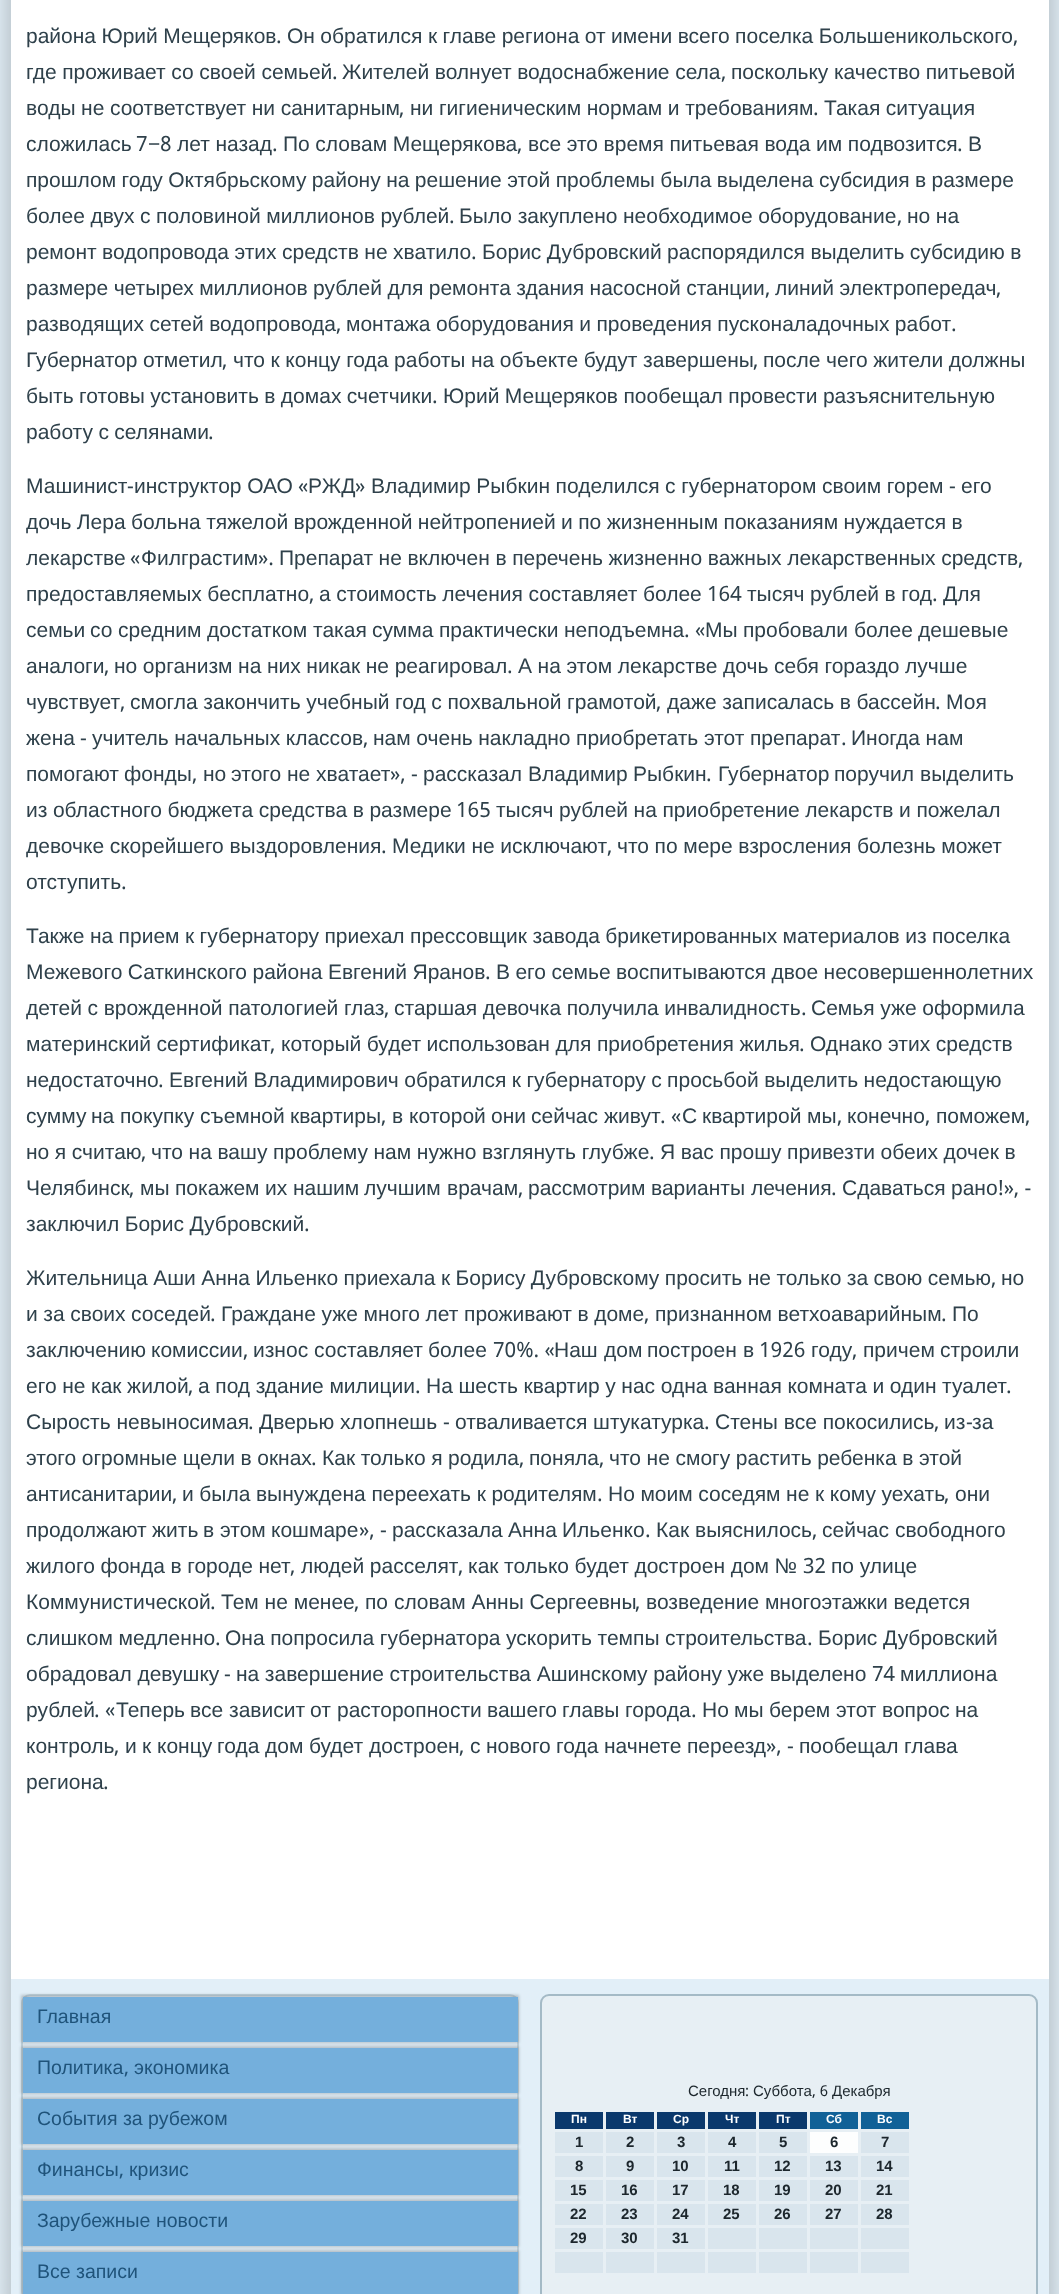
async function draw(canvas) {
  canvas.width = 1059;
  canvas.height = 2294;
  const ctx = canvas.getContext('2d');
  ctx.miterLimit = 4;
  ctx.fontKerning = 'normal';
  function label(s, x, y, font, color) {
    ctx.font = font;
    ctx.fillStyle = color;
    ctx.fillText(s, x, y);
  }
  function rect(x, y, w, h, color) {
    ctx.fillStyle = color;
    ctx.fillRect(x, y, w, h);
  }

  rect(0, 0, 1059, 2294, '#d9e5ed');
  ctx.fillStyle = '#0000001a';
  ctx.filter = 'blur(5px)';
  ctx.beginPath();
  ctx.rect(5, -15, 1050, 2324);
  ctx.fill();
  ctx.filter = 'none';
  rect(11, 0, 1038, 1979, '#fff');
  ctx.wordSpacing = '-0.4px';
  label('района Юрий Мещеряков', 26, 43, '21px Liberation Sans', '#2f414b');
  ctx.wordSpacing = '0px';
  label('.', 276, 43, '21px Khmer', '#2f414b');
  ctx.wordSpacing = '-0.4px';
  label('Он обратился к главе региона от имени всего поселка Большеникольского', 287, 43, '21px Liberation Sans', '#2f414b');
  ctx.wordSpacing = '0px';
  label(',', 1013, 43, '21px Khmer', '#2f414b');
  ctx.wordSpacing = '-0.25px';
  label('где проживает со своей семьей', 26, 79, '21px Liberation Sans', '#2f414b');
  ctx.wordSpacing = '0px';
  label('.', 332, 79, '21px Khmer', '#2f414b');
  ctx.wordSpacing = '-0.25px';
  label('Жителей волнует водоснабжение села', 342, 79, '21px Liberation Sans', '#2f414b');
  ctx.wordSpacing = '0px';
  label(',', 721, 79, '21px Khmer', '#2f414b');
  ctx.wordSpacing = '-0.25px';
  label('поскольку качество питьевой', 731, 79, '21px Liberation Sans', '#2f414b');
  label('воды не соответствует ни санитарным', 26, 115, '21px Liberation Sans', '#2f414b');
  ctx.wordSpacing = '0px';
  label(',', 399, 115, '21px Khmer', '#2f414b');
  ctx.wordSpacing = '-0.25px';
  label('ни гигиеническим нормам и требованиям', 410, 115, '21px Liberation Sans', '#2f414b');
  ctx.wordSpacing = '0px';
  label('.', 813, 115, '21px Khmer', '#2f414b');
  ctx.wordSpacing = '-0.25px';
  label('Такая ситуация', 824, 115, '21px Liberation Sans', '#2f414b');
  ctx.wordSpacing = '0px';
  label('сложилась', 26, 151, '21px Liberation Sans', '#2f414b');
  label('7', 136, 151, '21px Khmer', '#2f414b');
  label('−', 148, 151, '21px Liberation Sans', '#2f414b');
  label('8', 160, 151, '21px Khmer', '#2f414b');
  ctx.wordSpacing = '-0.25px';
  label('лет назад', 177, 151, '21px Liberation Sans', '#2f414b');
  label('По словам Мещерякова', 283, 151, '21px Liberation Sans', '#2f414b');
  label('все это время питьевая вода им подвозится', 528, 151, '21px Liberation Sans', '#2f414b');
  ctx.wordSpacing = '0px';
  label('В', 968, 151, '21px Liberation Sans', '#2f414b');
  label('.', 272, 151, '21px Khmer', '#2f414b');
  label(',', 517, 151, '21px Khmer', '#2f414b');
  label('.', 957, 151, '21px Khmer', '#2f414b');
  ctx.wordSpacing = '-0.4px';
  label('прошлом году Октябрьскому району на решение этой проблемы была выделена субсидия в размере', 26, 187, '21px Liberation Sans', '#2f414b');
  ctx.wordSpacing = '-0.25px';
  label('более двух с половиной миллионов рублей', 26, 223, '21px Liberation Sans', '#2f414b');
  ctx.wordSpacing = '0px';
  label('.', 449, 223, '21px Khmer', '#2f414b');
  ctx.wordSpacing = '-0.25px';
  label('Было закуплено необходимое оборудование', 459, 223, '21px Liberation Sans', '#2f414b');
  ctx.wordSpacing = '0px';
  label(',', 897, 223, '21px Khmer', '#2f414b');
  ctx.wordSpacing = '-0.25px';
  label('но на', 907, 223, '21px Liberation Sans', '#2f414b');
  ctx.wordSpacing = '-0.4px';
  label('ремонт водопровода этих средств не хватило', 26, 259, '21px Liberation Sans', '#2f414b');
  ctx.wordSpacing = '0px';
  label('.', 471, 259, '21px Khmer', '#2f414b');
  ctx.wordSpacing = '-0.4px';
  label('Борис Дубровский распорядился выделить субсидию в', 482, 259, '21px Liberation Sans', '#2f414b');
  label('размере четырех миллионов рублей для ремонта здания насосной станции', 26, 295, '21px Liberation Sans', '#2f414b');
  ctx.wordSpacing = '0px';
  label(',', 765, 295, '21px Khmer', '#2f414b');
  ctx.wordSpacing = '-0.4px';
  label('линий электропередач', 775, 295, '21px Liberation Sans', '#2f414b');
  ctx.wordSpacing = '0px';
  label(',', 996, 295, '21px Khmer', '#2f414b');
  ctx.wordSpacing = '-0.4px';
  label('разводящих сетей водопровода', 26, 331, '21px Liberation Sans', '#2f414b');
  ctx.wordSpacing = '0px';
  label(',', 336, 331, '21px Khmer', '#2f414b');
  ctx.wordSpacing = '-0.4px';
  label('монтажа оборудования и проведения пусконаладочных работ', 346, 331, '21px Liberation Sans', '#2f414b');
  ctx.wordSpacing = '0px';
  label('.', 951, 331, '21px Khmer', '#2f414b');
  ctx.wordSpacing = '-0.25px';
  label('Губернатор отметил', 26, 367, '21px Liberation Sans', '#2f414b');
  ctx.wordSpacing = '0px';
  label(',', 222, 367, '21px Khmer', '#2f414b');
  ctx.wordSpacing = '-0.25px';
  label('что к концу года работы на объекте будут завершены', 233, 367, '21px Liberation Sans', '#2f414b');
  ctx.wordSpacing = '0px';
  label(',', 753, 367, '21px Khmer', '#2f414b');
  ctx.wordSpacing = '-0.25px';
  label('после чего жители должны', 763, 367, '21px Liberation Sans', '#2f414b');
  ctx.wordSpacing = '-0.4px';
  label('быть готовы установить в домах счетчики', 26, 403, '21px Liberation Sans', '#2f414b');
  ctx.wordSpacing = '0px';
  label('.', 432, 403, '21px Khmer', '#2f414b');
  ctx.wordSpacing = '-0.4px';
  label('Юрий Мещеряков пообещал провести разъяснительную', 443, 403, '21px Liberation Sans', '#2f414b');
  label('работу с селянами', 26, 439, '21px Liberation Sans', '#2f414b');
  ctx.wordSpacing = '0px';
  label('.', 208, 439, '21px Khmer', '#2f414b');
  label('Машинист', 26, 493, '21px Liberation Sans', '#2f414b');
  label('-', 127, 493, '21px Khmer', '#2f414b');
  ctx.wordSpacing = '-0.25px';
  label('инструктор ОАО', 134, 493, '21px Liberation Sans', '#2f414b');
  ctx.wordSpacing = '0px';
  label('«', 298, 493, '21px Khmer', '#2f414b');
  label('РЖД', 308, 493, '21px Liberation Sans', '#2f414b');
  label('»', 355, 493, '21px Khmer', '#2f414b');
  ctx.wordSpacing = '-0.25px';
  label('Владимир Рыбкин поделился с губернатором своим горем', 371, 493, '21px Liberation Sans', '#2f414b');
  ctx.wordSpacing = '0px';
  label('-', 949, 493, '21px Khmer', '#2f414b');
  label('его', 961, 493, '21px Liberation Sans', '#2f414b');
  ctx.wordSpacing = '-0.4px';
  label('дочь Лера больна тяжелой врожденной нейтропенией и по жизненным показаниям нуждается в', 26, 529, '21px Liberation Sans', '#2f414b');
  ctx.wordSpacing = '0px';
  label('лекарстве', 26, 565, '21px Liberation Sans', '#2f414b');
  label('«', 130, 565, '21px Khmer', '#2f414b');
  label('Филграстим', 141, 565, '21px Liberation Sans', '#2f414b');
  label('».', 258, 565, '21px Khmer', '#2f414b');
  ctx.wordSpacing = '-0.25px';
  label('Препарат не включен в перечень жизненно важных лекарственных средств', 279, 565, '21px Liberation Sans', '#2f414b');
  ctx.wordSpacing = '0px';
  label(',', 1018, 565, '21px Khmer', '#2f414b');
  ctx.wordSpacing = '-0.25px';
  label('предоставляемых бесплатно', 26, 601, '21px Liberation Sans', '#2f414b');
  ctx.wordSpacing = '0px';
  label(',', 309, 601, '21px Khmer', '#2f414b');
  ctx.wordSpacing = '-0.25px';
  label('а стоимость лечения составляет более', 319, 601, '21px Liberation Sans', '#2f414b');
  ctx.wordSpacing = '0px';
  label('164', 707, 601, '21px Khmer', '#2f414b');
  ctx.wordSpacing = '-0.25px';
  label('тысяч рублей в год', 747, 601, '21px Liberation Sans', '#2f414b');
  ctx.wordSpacing = '0px';
  label('.', 932, 601, '21px Khmer', '#2f414b');
  label('Для', 943, 601, '21px Liberation Sans', '#2f414b');
  label('семьи', 26, 637, '21px Liberation Sans', '#2f414b');
  label('со', 90, 637, '21px Liberation Sans', '#2f414b');
  label('средним', 118, 637, '21px Liberation Sans', '#2f414b');
  label('достатком', 207, 637, '21px Liberation Sans', '#2f414b');
  label('такая', 313, 637, '21px Liberation Sans', '#2f414b');
  label('сумма', 372, 637, '21px Liberation Sans', '#2f414b');
  label('практически', 439, 637, '21px Liberation Sans', '#2f414b');
  label('неподъемна', 564, 637, '21px Liberation Sans', '#2f414b');
  label('. «', 684, 637, '21px Khmer', '#2f414b');
  label('Мы', 705, 637, '21px Liberation Sans', '#2f414b');
  label('пробовали', 743, 637, '21px Liberation Sans', '#2f414b');
  label('более', 854, 637, '21px Liberation Sans', '#2f414b');
  label('дешевые', 918, 637, '21px Liberation Sans', '#2f414b');
  label('аналоги', 26, 673, '21px Liberation Sans', '#2f414b');
  label(',', 104, 673, '21px Khmer', '#2f414b');
  ctx.wordSpacing = '-0.25px';
  label('но организм на них никак не реагировал', 114, 673, '21px Liberation Sans', '#2f414b');
  ctx.wordSpacing = '0px';
  label('.', 507, 673, '21px Khmer', '#2f414b');
  ctx.wordSpacing = '-0.25px';
  label('А на этом лекарстве дочь себя гораздо лучше', 518, 673, '21px Liberation Sans', '#2f414b');
  ctx.wordSpacing = '0px';
  label('чувствует', 26, 709, '21px Liberation Sans', '#2f414b');
  label(',', 120, 709, '21px Khmer', '#2f414b');
  ctx.wordSpacing = '-0.25px';
  label('смогла закончить учебный год с похвальной грамотой', 130, 709, '21px Liberation Sans', '#2f414b');
  ctx.wordSpacing = '0px';
  label(',', 656, 709, '21px Khmer', '#2f414b');
  ctx.wordSpacing = '-0.25px';
  label('даже записалась в бассейн', 667, 709, '21px Liberation Sans', '#2f414b');
  ctx.wordSpacing = '0px';
  label('.', 935, 709, '21px Khmer', '#2f414b');
  label('Моя', 946, 709, '21px Liberation Sans', '#2f414b');
  label('жена', 26, 745, '21px Liberation Sans', '#2f414b');
  label('-', 80, 745, '21px Khmer', '#2f414b');
  ctx.wordSpacing = '-0.25px';
  label('учитель начальных классов', 92, 745, '21px Liberation Sans', '#2f414b');
  label('нам очень накладно приобретать этот препарат', 373, 745, '21px Liberation Sans', '#2f414b');
  label('Иногда нам', 851, 745, '21px Liberation Sans', '#2f414b');
  ctx.wordSpacing = '0px';
  label(',', 363, 745, '21px Khmer', '#2f414b');
  label('.', 841, 745, '21px Khmer', '#2f414b');
  label('помогают', 26, 781, '21px Liberation Sans', '#2f414b');
  label('фонды', 124, 781, '21px Liberation Sans', '#2f414b');
  label(',', 192, 781, '21px Khmer', '#2f414b');
  label('но', 203, 781, '21px Liberation Sans', '#2f414b');
  label('этого', 231, 781, '21px Liberation Sans', '#2f414b');
  label('не', 287, 781, '21px Liberation Sans', '#2f414b');
  label('хватает', 316, 781, '21px Liberation Sans', '#2f414b');
  label('», -', 390, 781, '21px Khmer', '#2f414b');
  label('рассказал', 423, 781, '21px Liberation Sans', '#2f414b');
  label('Владимир', 528, 781, '21px Liberation Sans', '#2f414b');
  label('Рыбкин', 633, 781, '21px Liberation Sans', '#2f414b');
  label('.', 706, 781, '21px Khmer', '#2f414b');
  label('Губернатор', 718, 781, '21px Liberation Sans', '#2f414b');
  label('поручил', 834, 781, '21px Liberation Sans', '#2f414b');
  label('выделить', 920, 781, '21px Liberation Sans', '#2f414b');
  ctx.wordSpacing = '-0.25px';
  label('из областного бюджета средства в размере', 26, 817, '21px Liberation Sans', '#2f414b');
  ctx.wordSpacing = '0px';
  label('165', 456, 817, '21px Khmer', '#2f414b');
  ctx.wordSpacing = '-0.25px';
  label('тысяч рублей на приобретение лекарств и пожелал', 496, 817, '21px Liberation Sans', '#2f414b');
  label('девочке скорейшего выздоровления', 26, 853, '21px Liberation Sans', '#2f414b');
  ctx.wordSpacing = '0px';
  label('.', 381, 853, '21px Khmer', '#2f414b');
  ctx.wordSpacing = '-0.25px';
  label('Медики не исключают', 392, 853, '21px Liberation Sans', '#2f414b');
  ctx.wordSpacing = '0px';
  label(',', 607, 853, '21px Khmer', '#2f414b');
  ctx.wordSpacing = '-0.25px';
  label('что по мере взросления болезнь может', 617, 853, '21px Liberation Sans', '#2f414b');
  ctx.wordSpacing = '0px';
  label('отступить', 26, 889, '21px Liberation Sans', '#2f414b');
  label('.', 121, 889, '21px Khmer', '#2f414b');
  ctx.wordSpacing = '-0.4px';
  label('Также на прием к губернатору приехал прессовщик завода брикетированных материалов из поселка', 26, 943, '21px Liberation Sans', '#2f414b');
  label('Межевого Саткинского района Евгений Яранов', 26, 979, '21px Liberation Sans', '#2f414b');
  ctx.wordSpacing = '0px';
  label('.', 485, 979, '21px Khmer', '#2f414b');
  ctx.wordSpacing = '-0.4px';
  label('В его семье воспитываются двое несовершеннолетних', 496, 979, '21px Liberation Sans', '#2f414b');
  ctx.wordSpacing = '-0.25px';
  label('детей с врожденной патологией глаз', 26, 1015, '21px Liberation Sans', '#2f414b');
  ctx.wordSpacing = '0px';
  label(',', 384, 1015, '21px Khmer', '#2f414b');
  ctx.wordSpacing = '-0.25px';
  label('старшая девочка получила инвалидность', 394, 1015, '21px Liberation Sans', '#2f414b');
  ctx.wordSpacing = '0px';
  label('.', 801, 1015, '21px Khmer', '#2f414b');
  ctx.wordSpacing = '-0.25px';
  label('Семья уже оформила', 811, 1015, '21px Liberation Sans', '#2f414b');
  label('материнский сертификат', 26, 1051, '21px Liberation Sans', '#2f414b');
  ctx.wordSpacing = '0px';
  label(',', 270, 1051, '21px Khmer', '#2f414b');
  ctx.wordSpacing = '-0.25px';
  label('который будет использован для приобретения жилья', 281, 1051, '21px Liberation Sans', '#2f414b');
  ctx.wordSpacing = '0px';
  label('.', 799, 1051, '21px Khmer', '#2f414b');
  ctx.wordSpacing = '-0.25px';
  label('Однако этих средств', 810, 1051, '21px Liberation Sans', '#2f414b');
  ctx.wordSpacing = '0px';
  label('недостаточно', 26, 1087, '21px Liberation Sans', '#2f414b');
  label('.', 158, 1087, '21px Khmer', '#2f414b');
  ctx.wordSpacing = '-0.4px';
  label('Евгений Владимирович обратился к губернатору с просьбой выделить недостающую', 169, 1087, '21px Liberation Sans', '#2f414b');
  ctx.wordSpacing = '0px';
  label('сумму', 26, 1123, '21px Liberation Sans', '#2f414b');
  label('на', 91, 1123, '21px Liberation Sans', '#2f414b');
  label('покупку', 120, 1123, '21px Liberation Sans', '#2f414b');
  label('съемной', 200, 1123, '21px Liberation Sans', '#2f414b');
  label('квартиры', 290, 1123, '21px Liberation Sans', '#2f414b');
  label(',', 381, 1123, '21px Khmer', '#2f414b');
  label('в', 392, 1123, '21px Liberation Sans', '#2f414b');
  label('которой', 409, 1123, '21px Liberation Sans', '#2f414b');
  label('они', 491, 1123, '21px Liberation Sans', '#2f414b');
  label('сейчас', 531, 1123, '21px Liberation Sans', '#2f414b');
  label('живут', 604, 1123, '21px Liberation Sans', '#2f414b');
  label('. «', 660, 1123, '21px Khmer', '#2f414b');
  label('С', 682, 1123, '21px Liberation Sans', '#2f414b');
  label('квартирой', 702, 1123, '21px Liberation Sans', '#2f414b');
  label('мы', 807, 1123, '21px Liberation Sans', '#2f414b');
  label(',', 837, 1123, '21px Khmer', '#2f414b');
  label('конечно', 847, 1123, '21px Liberation Sans', '#2f414b');
  label(',', 925, 1123, '21px Khmer', '#2f414b');
  label('поможем', 936, 1123, '21px Liberation Sans', '#2f414b');
  label(',', 1025, 1123, '21px Khmer', '#2f414b');
  ctx.wordSpacing = '-0.25px';
  label('но я считаю', 26, 1159, '21px Liberation Sans', '#2f414b');
  ctx.wordSpacing = '0px';
  label(',', 141, 1159, '21px Khmer', '#2f414b');
  ctx.wordSpacing = '-0.25px';
  label('что на вашу проблему нам нужно взглянуть глубже', 151, 1159, '21px Liberation Sans', '#2f414b');
  ctx.wordSpacing = '0px';
  label('.', 649, 1159, '21px Khmer', '#2f414b');
  ctx.wordSpacing = '-0.25px';
  label('Я вас прошу привезти обеих дочек в', 660, 1159, '21px Liberation Sans', '#2f414b');
  ctx.wordSpacing = '0px';
  label('Челябинск', 26, 1195, '21px Liberation Sans', '#2f414b');
  label(',', 129, 1195, '21px Khmer', '#2f414b');
  label('мы', 140, 1195, '21px Liberation Sans', '#2f414b');
  label('покажем', 175, 1195, '21px Liberation Sans', '#2f414b');
  label('их', 265, 1195, '21px Liberation Sans', '#2f414b');
  label('нашим', 293, 1195, '21px Liberation Sans', '#2f414b');
  label('лучшим', 364, 1195, '21px Liberation Sans', '#2f414b');
  label('врачам', 447, 1195, '21px Liberation Sans', '#2f414b');
  label(',', 518, 1195, '21px Khmer', '#2f414b');
  label('рассмотрим', 528, 1195, '21px Liberation Sans', '#2f414b');
  label('варианты', 651, 1195, '21px Liberation Sans', '#2f414b');
  label('лечения', 751, 1195, '21px Liberation Sans', '#2f414b');
  label('.', 831, 1195, '21px Khmer', '#2f414b');
  label('Сдаваться', 842, 1195, '21px Liberation Sans', '#2f414b');
  label('рано', 951, 1195, '21px Liberation Sans', '#2f414b');
  label('!», -', 998, 1195, '21px Khmer', '#2f414b');
  ctx.wordSpacing = '-0.4px';
  label('заключил Борис Дубровский', 26, 1231, '21px Liberation Sans', '#2f414b');
  ctx.wordSpacing = '0px';
  label('.', 304, 1231, '21px Khmer', '#2f414b');
  ctx.wordSpacing = '-0.4px';
  label('Жительница Аши Анна Ильенко приехала к Борису Дубровскому просить не только за свою семью', 26, 1285, '21px Liberation Sans', '#2f414b');
  ctx.wordSpacing = '0px';
  label(',', 991, 1285, '21px Khmer', '#2f414b');
  label('но', 1001, 1285, '21px Liberation Sans', '#2f414b');
  ctx.wordSpacing = '-0.25px';
  label('и за своих соседей', 26, 1321, '21px Liberation Sans', '#2f414b');
  ctx.wordSpacing = '0px';
  label('.', 210, 1321, '21px Khmer', '#2f414b');
  ctx.wordSpacing = '-0.25px';
  label('Граждане уже много лет проживают в доме', 221, 1321, '21px Liberation Sans', '#2f414b');
  ctx.wordSpacing = '0px';
  label(',', 644, 1321, '21px Khmer', '#2f414b');
  ctx.wordSpacing = '-0.25px';
  label('признанном ветхоаварийным', 655, 1321, '21px Liberation Sans', '#2f414b');
  ctx.wordSpacing = '0px';
  label('.', 941, 1321, '21px Khmer', '#2f414b');
  label('По', 952, 1321, '21px Liberation Sans', '#2f414b');
  label('заключению', 26, 1357, '21px Liberation Sans', '#2f414b');
  label('комиссии', 151, 1357, '21px Liberation Sans', '#2f414b');
  label(',', 243, 1357, '21px Khmer', '#2f414b');
  label('износ', 253, 1357, '21px Liberation Sans', '#2f414b');
  label('составляет', 314, 1357, '21px Liberation Sans', '#2f414b');
  label('более', 428, 1357, '21px Liberation Sans', '#2f414b');
  label('70%. «', 493, 1357, '21px Khmer', '#2f414b');
  label('Наш', 554, 1357, '21px Liberation Sans', '#2f414b');
  label('дом', 604, 1357, '21px Liberation Sans', '#2f414b');
  label('построен', 647, 1357, '21px Liberation Sans', '#2f414b');
  label('в', 743, 1357, '21px Liberation Sans', '#2f414b');
  label('1926', 759, 1357, '21px Khmer', '#2f414b');
  label('году', 811, 1357, '21px Liberation Sans', '#2f414b');
  label(',', 852, 1357, '21px Khmer', '#2f414b');
  label('причем', 863, 1357, '21px Liberation Sans', '#2f414b');
  label('строили', 940, 1357, '21px Liberation Sans', '#2f414b');
  ctx.wordSpacing = '-0.25px';
  label('его не как жилой', 26, 1393, '21px Liberation Sans', '#2f414b');
  ctx.wordSpacing = '0px';
  label(',', 188, 1393, '21px Khmer', '#2f414b');
  ctx.wordSpacing = '-0.25px';
  label('а под здание милиции', 198, 1393, '21px Liberation Sans', '#2f414b');
  ctx.wordSpacing = '0px';
  label('.', 415, 1393, '21px Khmer', '#2f414b');
  ctx.wordSpacing = '-0.25px';
  label('На шесть квартир у нас одна ванная комната и один туалет', 426, 1393, '21px Liberation Sans', '#2f414b');
  ctx.wordSpacing = '0px';
  label('.', 1006, 1393, '21px Khmer', '#2f414b');
  label('Сырость невыносимая', 26, 1429, '21px Liberation Sans', '#2f414b');
  label('Дверью хлопнешь', 259, 1429, '21px Liberation Sans', '#2f414b');
  label('-', 443, 1429, '21px Khmer', '#2f414b');
  label('отваливается штукатурка', 455, 1429, '21px Liberation Sans', '#2f414b');
  label('Стены все покосились', 715, 1429, '21px Liberation Sans', '#2f414b');
  label('из', 944, 1429, '21px Liberation Sans', '#2f414b');
  label('-', 966, 1429, '21px Khmer', '#2f414b');
  label('за', 972, 1429, '21px Liberation Sans', '#2f414b');
  label('.', 248, 1429, '21px Khmer', '#2f414b');
  label('.', 704, 1429, '21px Khmer', '#2f414b');
  label(',', 934, 1429, '21px Khmer', '#2f414b');
  ctx.wordSpacing = '-0.25px';
  label('этого огромные щели в окнах', 26, 1465, '21px Liberation Sans', '#2f414b');
  ctx.wordSpacing = '0px';
  label('.', 311, 1465, '21px Khmer', '#2f414b');
  ctx.wordSpacing = '-0.25px';
  label('Как только я родила', 322, 1465, '21px Liberation Sans', '#2f414b');
  ctx.wordSpacing = '0px';
  label(',', 519, 1465, '21px Khmer', '#2f414b');
  label('поняла', 529, 1465, '21px Liberation Sans', '#2f414b');
  label(',', 599, 1465, '21px Khmer', '#2f414b');
  ctx.wordSpacing = '-0.25px';
  label('что не смогу растить ребенка в этой', 609, 1465, '21px Liberation Sans', '#2f414b');
  ctx.wordSpacing = '0px';
  label('антисанитарии', 26, 1501, '21px Liberation Sans', '#2f414b');
  label(',', 172, 1501, '21px Khmer', '#2f414b');
  ctx.wordSpacing = '-0.25px';
  label('и была вынуждена переехать к родителям', 182, 1501, '21px Liberation Sans', '#2f414b');
  ctx.wordSpacing = '0px';
  label('.', 597, 1501, '21px Khmer', '#2f414b');
  ctx.wordSpacing = '-0.25px';
  label('Но моим соседям не к кому уехать', 608, 1501, '21px Liberation Sans', '#2f414b');
  ctx.wordSpacing = '0px';
  label(',', 944, 1501, '21px Khmer', '#2f414b');
  label('они', 955, 1501, '21px Liberation Sans', '#2f414b');
  label('продолжают', 26, 1537, '21px Liberation Sans', '#2f414b');
  label('жить', 152, 1537, '21px Liberation Sans', '#2f414b');
  label('в', 203, 1537, '21px Liberation Sans', '#2f414b');
  label('этом', 220, 1537, '21px Liberation Sans', '#2f414b');
  label('кошмаре', 271, 1537, '21px Liberation Sans', '#2f414b');
  label('», -', 359, 1537, '21px Khmer', '#2f414b');
  label('рассказала', 392, 1537, '21px Liberation Sans', '#2f414b');
  label('Анна', 508, 1537, '21px Liberation Sans', '#2f414b');
  label('Ильенко', 562, 1537, '21px Liberation Sans', '#2f414b');
  label('.', 645, 1537, '21px Khmer', '#2f414b');
  label('Как', 656, 1537, '21px Liberation Sans', '#2f414b');
  label('выяснилось', 695, 1537, '21px Liberation Sans', '#2f414b');
  label(',', 812, 1537, '21px Khmer', '#2f414b');
  label('сейчас', 822, 1537, '21px Liberation Sans', '#2f414b');
  label('свободного', 895, 1537, '21px Liberation Sans', '#2f414b');
  ctx.wordSpacing = '-0.25px';
  label('жилого фонда в городе нет', 26, 1573, '21px Liberation Sans', '#2f414b');
  ctx.wordSpacing = '0px';
  label(',', 290, 1573, '21px Khmer', '#2f414b');
  ctx.wordSpacing = '-0.25px';
  label('людей расселят', 301, 1573, '21px Liberation Sans', '#2f414b');
  ctx.wordSpacing = '0px';
  label(',', 458, 1573, '21px Khmer', '#2f414b');
  ctx.wordSpacing = '-0.25px';
  label('как только будет достроен дом №', 468, 1573, '21px Liberation Sans', '#2f414b');
  ctx.wordSpacing = '0px';
  label('32', 803, 1573, '21px Khmer', '#2f414b');
  ctx.wordSpacing = '-0.25px';
  label('по улице', 831, 1573, '21px Liberation Sans', '#2f414b');
  ctx.wordSpacing = '0px';
  label('Коммунистической', 26, 1609, '21px Liberation Sans', '#2f414b');
  label('.', 210, 1609, '21px Khmer', '#2f414b');
  label('Тем не менее', 221, 1609, '21px Liberation Sans', '#2f414b');
  label(',', 354, 1609, '21px Khmer', '#2f414b');
  label('по словам Анны Сергеевны', 365, 1609, '21px Liberation Sans', '#2f414b');
  label(',', 635, 1609, '21px Khmer', '#2f414b');
  label('возведение многоэтажки ведется', 646, 1609, '21px Liberation Sans', '#2f414b');
  ctx.wordSpacing = '-0.25px';
  label('слишком медленно', 26, 1645, '21px Liberation Sans', '#2f414b');
  ctx.wordSpacing = '0px';
  label('.', 215, 1645, '21px Khmer', '#2f414b');
  ctx.wordSpacing = '-0.25px';
  label('Она попросила губернатора ускорить темпы строительства', 225, 1645, '21px Liberation Sans', '#2f414b');
  ctx.wordSpacing = '0px';
  label('.', 807, 1645, '21px Khmer', '#2f414b');
  ctx.wordSpacing = '-0.25px';
  label('Борис Дубровский', 818, 1645, '21px Liberation Sans', '#2f414b');
  label('обрадовал девушку', 26, 1681, '21px Liberation Sans', '#2f414b');
  ctx.wordSpacing = '0px';
  label('-', 224, 1681, '21px Khmer', '#2f414b');
  ctx.wordSpacing = '-0.25px';
  label('на завершение строительства Ашинскому району уже выделено', 236, 1681, '21px Liberation Sans', '#2f414b');
  ctx.wordSpacing = '0px';
  label('74', 872, 1681, '21px Khmer', '#2f414b');
  label('миллиона', 900, 1681, '21px Liberation Sans', '#2f414b');
  label('рублей', 26, 1717, '21px Liberation Sans', '#2f414b');
  label('. «', 94, 1717, '21px Khmer', '#2f414b');
  label('Теперь', 116, 1717, '21px Liberation Sans', '#2f414b');
  label('все', 190, 1717, '21px Liberation Sans', '#2f414b');
  label('зависит', 229, 1717, '21px Liberation Sans', '#2f414b');
  label('от', 310, 1717, '21px Liberation Sans', '#2f414b');
  label('расторопности', 337, 1717, '21px Liberation Sans', '#2f414b');
  label('вашего', 487, 1717, '21px Liberation Sans', '#2f414b');
  label('главы', 562, 1717, '21px Liberation Sans', '#2f414b');
  label('города', 625, 1717, '21px Liberation Sans', '#2f414b');
  label('.', 691, 1717, '21px Khmer', '#2f414b');
  label('Но', 702, 1717, '21px Liberation Sans', '#2f414b');
  label('мы', 734, 1717, '21px Liberation Sans', '#2f414b');
  label('берем', 769, 1717, '21px Liberation Sans', '#2f414b');
  label('этот', 836, 1717, '21px Liberation Sans', '#2f414b');
  label('вопрос', 882, 1717, '21px Liberation Sans', '#2f414b');
  label('на', 955, 1717, '21px Liberation Sans', '#2f414b');
  label('контроль', 26, 1753, '21px Liberation Sans', '#2f414b');
  label(',', 114, 1753, '21px Khmer', '#2f414b');
  label('и', 125, 1753, '21px Liberation Sans', '#2f414b');
  label('к', 142, 1753, '21px Liberation Sans', '#2f414b');
  label('концу', 157, 1753, '21px Liberation Sans', '#2f414b');
  label('года', 217, 1753, '21px Liberation Sans', '#2f414b');
  label('дом', 265, 1753, '21px Liberation Sans', '#2f414b');
  label('будет', 309, 1753, '21px Liberation Sans', '#2f414b');
  label('достроен', 369, 1753, '21px Liberation Sans', '#2f414b');
  label(',', 459, 1753, '21px Khmer', '#2f414b');
  label('с', 470, 1753, '21px Liberation Sans', '#2f414b');
  label('нового', 486, 1753, '21px Liberation Sans', '#2f414b');
  label('года', 556, 1753, '21px Liberation Sans', '#2f414b');
  label('начнете', 604, 1753, '21px Liberation Sans', '#2f414b');
  label('переезд', 687, 1753, '21px Liberation Sans', '#2f414b');
  label('», -', 766, 1753, '21px Khmer', '#2f414b');
  label('пообещал', 799, 1753, '21px Liberation Sans', '#2f414b');
  label('глава', 904, 1753, '21px Liberation Sans', '#2f414b');
  label('региона', 26, 1789, '21px Liberation Sans', '#2f414b');
  label('.', 103, 1789, '21px Khmer', '#2f414b');
  rect(11, 1979, 1038, 315, '#e2eff8');
  ctx.beginPath();
  ctx.roundRect(22, 1995, 496, 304, 8);
  ctx.strokeStyle = '#c3d5df';
  ctx.lineWidth = 2;
  ctx.stroke();
  ctx.fillStyle = '#00000033';
  ctx.filter = 'blur(1.5px)';
  ctx.beginPath();
  ctx.rect(21, 1995, 498, 48);
  ctx.fill();
  ctx.filter = 'none';
  rect(23, 1997, 495, 45, '#74afdc');
  label('Главная', 37, 2023, '19.5px Liberation Sans', '#1f537a');
  ctx.fillStyle = '#00000033';
  ctx.filter = 'blur(1.5px)';
  ctx.beginPath();
  ctx.rect(21, 2046, 498, 48);
  ctx.fill();
  ctx.filter = 'none';
  rect(23, 2048, 495, 45, '#74afdc');
  label('Политика', 37, 2074, '19.5px Liberation Sans', '#1f537a');
  label(',', 124, 2074, '19.5px Khmer', '#1f537a');
  label('экономика', 134, 2074, '19.5px Liberation Sans', '#1f537a');
  ctx.fillStyle = '#00000033';
  ctx.filter = 'blur(1.5px)';
  ctx.beginPath();
  ctx.rect(21, 2097, 498, 48);
  ctx.fill();
  ctx.filter = 'none';
  rect(23, 2099, 495, 45, '#74afdc');
  label('События за рубежом', 37, 2125, '19.5px Liberation Sans', '#1f537a');
  ctx.fillStyle = '#00000033';
  ctx.filter = 'blur(1.5px)';
  ctx.beginPath();
  ctx.rect(21, 2148, 498, 48);
  ctx.fill();
  ctx.filter = 'none';
  rect(23, 2150, 495, 45, '#74afdc');
  label('Финансы', 37, 2176, '19.5px Liberation Sans', '#1f537a');
  label(',', 119, 2176, '19.5px Khmer', '#1f537a');
  label('кризис', 129, 2176, '19.5px Liberation Sans', '#1f537a');
  ctx.fillStyle = '#00000033';
  ctx.filter = 'blur(1.5px)';
  ctx.beginPath();
  ctx.rect(21, 2199, 498, 48);
  ctx.fill();
  ctx.filter = 'none';
  rect(23, 2201, 495, 45, '#74afdc');
  label('Зарубежные новости', 37, 2227, '19.5px Liberation Sans', '#1f537a');
  ctx.fillStyle = '#00000033';
  ctx.filter = 'blur(1.5px)';
  ctx.beginPath();
  ctx.rect(21, 2250, 498, 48);
  ctx.fill();
  ctx.filter = 'none';
  rect(23, 2252, 495, 42, '#74afdc');
  label('Все записи', 37, 2278, '19.5px Liberation Sans', '#1f537a');
  ctx.fillStyle = '#e7eff4';
  ctx.beginPath();
  ctx.roundRect(541, 1995, 496, 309, 8);
  ctx.fill();
  ctx.strokeStyle = '#a4bac6';
  ctx.stroke();
  label('Сегодня', 688, 2096, '15px Liberation Sans', '#1c262c');
  label(':', 745, 2096, '15px Khmer', '#1c262c');
  label('Суббота', 753, 2096, '15px Liberation Sans', '#1c262c');
  label(', 6', 812, 2096, '15px Khmer', '#1c262c');
  label('Декабря', 832, 2096, '15px Liberation Sans', '#1c262c');
  rect(555, 2112, 48, 17, '#0a386c');
  label('Пн', 571, 2123, 'bold 12px Liberation Sans', '#fff');
  rect(606, 2112, 48, 17, '#0a386c');
  label('Вт', 623, 2123, 'bold 12px Liberation Sans', '#fff');
  rect(657, 2112, 48, 17, '#0a386c');
  label('Ср', 673, 2123, 'bold 12px Liberation Sans', '#fff');
  rect(708, 2112, 48, 17, '#0a386c');
  label('Чт', 725, 2123, 'bold 12px Liberation Sans', '#fff');
  rect(759, 2112, 48, 17, '#0a386c');
  label('Пт', 776, 2123, 'bold 12px Liberation Sans', '#fff');
  rect(810, 2112, 48, 17, '#106197');
  label('Сб', 826, 2123, 'bold 12px Liberation Sans', '#fff');
  rect(861, 2112, 48, 17, '#106197');
  label('Вс', 877, 2123, 'bold 12px Liberation Sans', '#fff');
  rect(555, 2132, 48, 21, '#d9e5ed');
  label('1', 575, 2147, 'bold 15px Liberation Sans', '#1c262c');
  rect(606, 2132, 48, 21, '#d9e5ed');
  label('2', 626, 2147, 'bold 15px Liberation Sans', '#1c262c');
  rect(657, 2132, 48, 21, '#d9e5ed');
  label('3', 677, 2147, 'bold 15px Liberation Sans', '#1c262c');
  rect(708, 2132, 48, 21, '#d9e5ed');
  label('4', 728, 2147, 'bold 15px Liberation Sans', '#1c262c');
  rect(759, 2132, 48, 21, '#d9e5ed');
  label('5', 779, 2147, 'bold 15px Liberation Sans', '#1c262c');
  rect(810, 2132, 48, 21, '#fdfefe');
  label('6', 830, 2147, 'bold 15px Liberation Sans', '#1c262c');
  rect(861, 2132, 48, 21, '#d9e5ed');
  label('7', 881, 2147, 'bold 15px Liberation Sans', '#1c262c');
  rect(555, 2156, 48, 21, '#d9e5ed');
  label('8', 575, 2171, 'bold 15px Liberation Sans', '#1c262c');
  rect(606, 2156, 48, 21, '#d9e5ed');
  label('9', 626, 2171, 'bold 15px Liberation Sans', '#1c262c');
  rect(657, 2156, 48, 21, '#d9e5ed');
  label('10', 672, 2171, 'bold 15px Liberation Sans', '#1c262c');
  rect(708, 2156, 48, 21, '#d9e5ed');
  label('11', 724, 2171, 'bold 15px Liberation Sans', '#1c262c');
  rect(759, 2156, 48, 21, '#d9e5ed');
  label('12', 774, 2171, 'bold 15px Liberation Sans', '#1c262c');
  rect(810, 2156, 48, 21, '#d9e5ed');
  label('13', 825, 2171, 'bold 15px Liberation Sans', '#1c262c');
  rect(861, 2156, 48, 21, '#d9e5ed');
  label('14', 876, 2171, 'bold 15px Liberation Sans', '#1c262c');
  rect(555, 2180, 48, 21, '#d9e5ed');
  label('15', 570, 2195, 'bold 15px Liberation Sans', '#1c262c');
  rect(606, 2180, 48, 21, '#d9e5ed');
  label('16', 621, 2195, 'bold 15px Liberation Sans', '#1c262c');
  rect(657, 2180, 48, 21, '#d9e5ed');
  label('17', 672, 2195, 'bold 15px Liberation Sans', '#1c262c');
  rect(708, 2180, 48, 21, '#d9e5ed');
  label('18', 723, 2195, 'bold 15px Liberation Sans', '#1c262c');
  rect(759, 2180, 48, 21, '#d9e5ed');
  label('19', 774, 2195, 'bold 15px Liberation Sans', '#1c262c');
  rect(810, 2180, 48, 21, '#d9e5ed');
  label('20', 825, 2195, 'bold 15px Liberation Sans', '#1c262c');
  rect(861, 2180, 48, 21, '#d9e5ed');
  label('21', 876, 2195, 'bold 15px Liberation Sans', '#1c262c');
  rect(555, 2204, 48, 21, '#d9e5ed');
  label('22', 570, 2219, 'bold 15px Liberation Sans', '#1c262c');
  rect(606, 2204, 48, 21, '#d9e5ed');
  label('23', 621, 2219, 'bold 15px Liberation Sans', '#1c262c');
  rect(657, 2204, 48, 21, '#d9e5ed');
  label('24', 672, 2219, 'bold 15px Liberation Sans', '#1c262c');
  rect(708, 2204, 48, 21, '#d9e5ed');
  label('25', 723, 2219, 'bold 15px Liberation Sans', '#1c262c');
  rect(759, 2204, 48, 21, '#d9e5ed');
  label('26', 774, 2219, 'bold 15px Liberation Sans', '#1c262c');
  rect(810, 2204, 48, 21, '#d9e5ed');
  label('27', 825, 2219, 'bold 15px Liberation Sans', '#1c262c');
  rect(861, 2204, 48, 21, '#d9e5ed');
  label('28', 876, 2219, 'bold 15px Liberation Sans', '#1c262c');
  rect(555, 2228, 48, 21, '#d9e5ed');
  label('29', 570, 2243, 'bold 15px Liberation Sans', '#1c262c');
  rect(606, 2228, 48, 21, '#d9e5ed');
  label('30', 621, 2243, 'bold 15px Liberation Sans', '#1c262c');
  rect(657, 2228, 48, 21, '#d9e5ed');
  label('31', 672, 2243, 'bold 15px Liberation Sans', '#1c262c');
  rect(708, 2228, 48, 21, '#d9e5ed');
  rect(759, 2228, 48, 21, '#d9e5ed');
  rect(810, 2228, 48, 21, '#d9e5ed');
  rect(861, 2228, 48, 21, '#d9e5ed');
  rect(555, 2252, 48, 21, '#d9e5ed');
  rect(606, 2252, 48, 21, '#d9e5ed');
  rect(657, 2252, 48, 21, '#d9e5ed');
  rect(708, 2252, 48, 21, '#d9e5ed');
  rect(759, 2252, 48, 21, '#d9e5ed');
  rect(810, 2252, 48, 21, '#d9e5ed');
  rect(861, 2252, 48, 21, '#d9e5ed');
}

draw(document.querySelector('canvas'));
